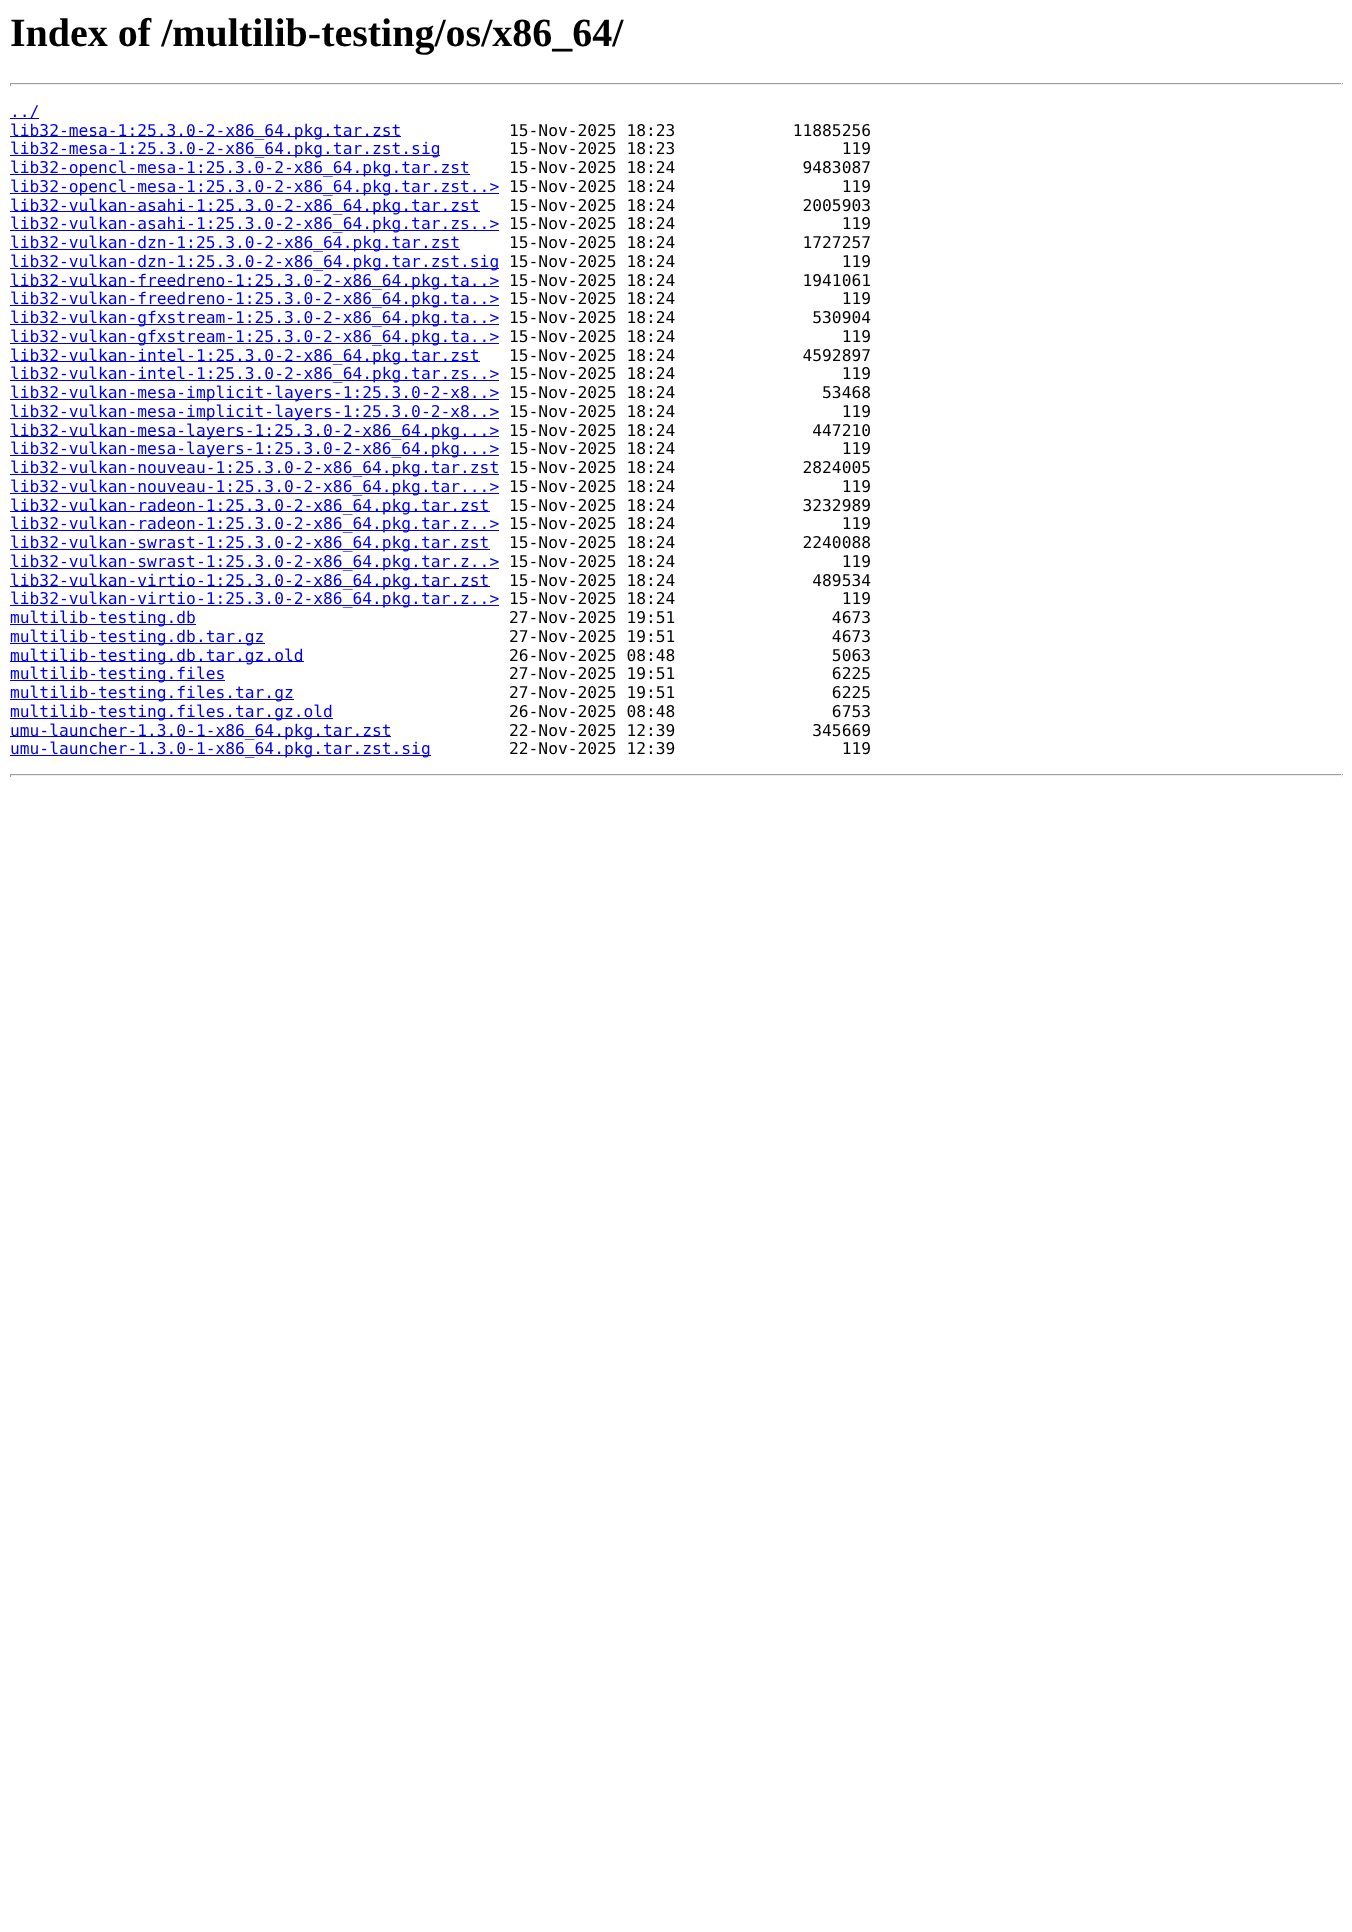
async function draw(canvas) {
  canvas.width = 1352;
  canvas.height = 1932;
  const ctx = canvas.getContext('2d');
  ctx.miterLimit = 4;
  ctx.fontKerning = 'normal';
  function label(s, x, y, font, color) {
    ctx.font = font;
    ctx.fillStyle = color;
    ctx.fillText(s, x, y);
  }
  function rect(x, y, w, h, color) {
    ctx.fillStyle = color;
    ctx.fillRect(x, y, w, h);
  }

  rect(0, 0, 1352, 1932, '#fff');
  label('Index of /multilib-testing/os/x86_64/', 10, 46, 'bold 40px Liberation Serif', '#000');
  rect(10, 83, 1333, 1, '#9f9f9f');
  rect(1341, 83, 1, 3, '#eee');
  rect(10, 84, 1333, 1, '#eee');
  rect(10, 83, 1, 3, '#9f9f9f');
  rect(10, 118, 29, 1, '#00e');
  label('../', 10, 117, '16.25px DejaVu Sans Mono', '#00e');
  rect(10, 136, 391, 1, '#00e');
  label('lib32-mesa-1:25.3.0-2-x86_64.pkg.tar.zst', 10, 136, '16.25px DejaVu Sans Mono', '#00e');
  label('15-Nov-2025 18:23            11885256', 509, 136, '16.25px DejaVu Sans Mono', '#000');
  rect(10, 155, 430, 1, '#00e');
  label('lib32-mesa-1:25.3.0-2-x86_64.pkg.tar.zst.sig', 10, 154, '16.25px DejaVu Sans Mono', '#00e');
  label('15-Nov-2025 18:23                 119', 509, 154, '16.25px DejaVu Sans Mono', '#000');
  rect(10, 174, 460, 1, '#00e');
  label('lib32-opencl-mesa-1:25.3.0-2-x86_64.pkg.tar.zst', 10, 173, '16.25px DejaVu Sans Mono', '#00e');
  label('15-Nov-2025 18:24             9483087', 509, 173, '16.25px DejaVu Sans Mono', '#000');
  rect(10, 193, 489, 1, '#00e');
  label('lib32-opencl-mesa-1:25.3.0-2-x86_64.pkg.tar.zst..>', 10, 192, '16.25px DejaVu Sans Mono', '#00e');
  label('15-Nov-2025 18:24                 119', 509, 192, '16.25px DejaVu Sans Mono', '#000');
  rect(10, 211, 470, 1, '#00e');
  label('lib32-vulkan-asahi-1:25.3.0-2-x86_64.pkg.tar.zst', 10, 211, '16.25px DejaVu Sans Mono', '#00e');
  label('15-Nov-2025 18:24             2005903', 509, 211, '16.25px DejaVu Sans Mono', '#000');
  rect(10, 230, 489, 1, '#00e');
  label('lib32-vulkan-asahi-1:25.3.0-2-x86_64.pkg.tar.zs..>', 10, 229, '16.25px DejaVu Sans Mono', '#00e');
  label('15-Nov-2025 18:24                 119', 509, 229, '16.25px DejaVu Sans Mono', '#000');
  rect(10, 249, 450, 1, '#00e');
  label('lib32-vulkan-dzn-1:25.3.0-2-x86_64.pkg.tar.zst', 10, 248, '16.25px DejaVu Sans Mono', '#00e');
  label('15-Nov-2025 18:24             1727257', 509, 248, '16.25px DejaVu Sans Mono', '#000');
  rect(10, 268, 489, 1, '#00e');
  label('lib32-vulkan-dzn-1:25.3.0-2-x86_64.pkg.tar.zst.sig', 10, 267, '16.25px DejaVu Sans Mono', '#00e');
  label('15-Nov-2025 18:24                 119', 509, 267, '16.25px DejaVu Sans Mono', '#000');
  rect(10, 286, 489, 1, '#00e');
  label('lib32-vulkan-freedreno-1:25.3.0-2-x86_64.pkg.ta..>', 10, 286, '16.25px DejaVu Sans Mono', '#00e');
  label('15-Nov-2025 18:24             1941061', 509, 286, '16.25px DejaVu Sans Mono', '#000');
  rect(10, 305, 489, 1, '#00e');
  label('lib32-vulkan-freedreno-1:25.3.0-2-x86_64.pkg.ta..>', 10, 304, '16.25px DejaVu Sans Mono', '#00e');
  label('15-Nov-2025 18:24                 119', 509, 304, '16.25px DejaVu Sans Mono', '#000');
  rect(10, 324, 489, 1, '#00e');
  label('lib32-vulkan-gfxstream-1:25.3.0-2-x86_64.pkg.ta..>', 10, 323, '16.25px DejaVu Sans Mono', '#00e');
  label('15-Nov-2025 18:24              530904', 509, 323, '16.25px DejaVu Sans Mono', '#000');
  rect(10, 343, 489, 1, '#00e');
  label('lib32-vulkan-gfxstream-1:25.3.0-2-x86_64.pkg.ta..>', 10, 342, '16.25px DejaVu Sans Mono', '#00e');
  label('15-Nov-2025 18:24                 119', 509, 342, '16.25px DejaVu Sans Mono', '#000');
  rect(10, 361, 470, 1, '#00e');
  label('lib32-vulkan-intel-1:25.3.0-2-x86_64.pkg.tar.zst', 10, 361, '16.25px DejaVu Sans Mono', '#00e');
  label('15-Nov-2025 18:24             4592897', 509, 361, '16.25px DejaVu Sans Mono', '#000');
  rect(10, 380, 489, 1, '#00e');
  label('lib32-vulkan-intel-1:25.3.0-2-x86_64.pkg.tar.zs..>', 10, 379, '16.25px DejaVu Sans Mono', '#00e');
  label('15-Nov-2025 18:24                 119', 509, 379, '16.25px DejaVu Sans Mono', '#000');
  rect(10, 399, 489, 1, '#00e');
  label('lib32-vulkan-mesa-implicit-layers-1:25.3.0-2-x8..>', 10, 398, '16.25px DejaVu Sans Mono', '#00e');
  label('15-Nov-2025 18:24               53468', 509, 398, '16.25px DejaVu Sans Mono', '#000');
  rect(10, 418, 489, 1, '#00e');
  label('lib32-vulkan-mesa-implicit-layers-1:25.3.0-2-x8..>', 10, 417, '16.25px DejaVu Sans Mono', '#00e');
  label('15-Nov-2025 18:24                 119', 509, 417, '16.25px DejaVu Sans Mono', '#000');
  rect(10, 436, 489, 1, '#00e');
  label('lib32-vulkan-mesa-layers-1:25.3.0-2-x86_64.pkg...>', 10, 436, '16.25px DejaVu Sans Mono', '#00e');
  label('15-Nov-2025 18:24              447210', 509, 436, '16.25px DejaVu Sans Mono', '#000');
  rect(10, 455, 489, 1, '#00e');
  label('lib32-vulkan-mesa-layers-1:25.3.0-2-x86_64.pkg...>', 10, 454, '16.25px DejaVu Sans Mono', '#00e');
  label('15-Nov-2025 18:24                 119', 509, 454, '16.25px DejaVu Sans Mono', '#000');
  rect(10, 474, 489, 1, '#00e');
  label('lib32-vulkan-nouveau-1:25.3.0-2-x86_64.pkg.tar.zst', 10, 473, '16.25px DejaVu Sans Mono', '#00e');
  label('15-Nov-2025 18:24             2824005', 509, 473, '16.25px DejaVu Sans Mono', '#000');
  rect(10, 493, 489, 1, '#00e');
  label('lib32-vulkan-nouveau-1:25.3.0-2-x86_64.pkg.tar...>', 10, 492, '16.25px DejaVu Sans Mono', '#00e');
  label('15-Nov-2025 18:24                 119', 509, 492, '16.25px DejaVu Sans Mono', '#000');
  rect(10, 511, 480, 1, '#00e');
  label('lib32-vulkan-radeon-1:25.3.0-2-x86_64.pkg.tar.zst', 10, 511, '16.25px DejaVu Sans Mono', '#00e');
  label('15-Nov-2025 18:24             3232989', 509, 511, '16.25px DejaVu Sans Mono', '#000');
  rect(10, 530, 489, 1, '#00e');
  label('lib32-vulkan-radeon-1:25.3.0-2-x86_64.pkg.tar.z..>', 10, 529, '16.25px DejaVu Sans Mono', '#00e');
  label('15-Nov-2025 18:24                 119', 509, 529, '16.25px DejaVu Sans Mono', '#000');
  rect(10, 549, 480, 1, '#00e');
  label('lib32-vulkan-swrast-1:25.3.0-2-x86_64.pkg.tar.zst', 10, 548, '16.25px DejaVu Sans Mono', '#00e');
  label('15-Nov-2025 18:24             2240088', 509, 548, '16.25px DejaVu Sans Mono', '#000');
  rect(10, 568, 489, 1, '#00e');
  label('lib32-vulkan-swrast-1:25.3.0-2-x86_64.pkg.tar.z..>', 10, 567, '16.25px DejaVu Sans Mono', '#00e');
  label('15-Nov-2025 18:24                 119', 509, 567, '16.25px DejaVu Sans Mono', '#000');
  rect(10, 586, 480, 1, '#00e');
  label('lib32-vulkan-virtio-1:25.3.0-2-x86_64.pkg.tar.zst', 10, 586, '16.25px DejaVu Sans Mono', '#00e');
  label('15-Nov-2025 18:24              489534', 509, 586, '16.25px DejaVu Sans Mono', '#000');
  rect(10, 605, 489, 1, '#00e');
  label('lib32-vulkan-virtio-1:25.3.0-2-x86_64.pkg.tar.z..>', 10, 604, '16.25px DejaVu Sans Mono', '#00e');
  label('15-Nov-2025 18:24                 119', 509, 604, '16.25px DejaVu Sans Mono', '#000');
  rect(10, 624, 186, 1, '#00e');
  label('multilib-testing.db', 10, 623, '16.25px DejaVu Sans Mono', '#00e');
  label('27-Nov-2025 19:51                4673', 509, 623, '16.25px DejaVu Sans Mono', '#000');
  rect(10, 643, 255, 1, '#00e');
  label('multilib-testing.db.tar.gz', 10, 642, '16.25px DejaVu Sans Mono', '#00e');
  label('27-Nov-2025 19:51                4673', 509, 642, '16.25px DejaVu Sans Mono', '#000');
  rect(10, 661, 294, 1, '#00e');
  label('multilib-testing.db.tar.gz.old', 10, 661, '16.25px DejaVu Sans Mono', '#00e');
  label('26-Nov-2025 08:48                5063', 509, 661, '16.25px DejaVu Sans Mono', '#000');
  rect(10, 680, 215, 1, '#00e');
  label('multilib-testing.files', 10, 679, '16.25px DejaVu Sans Mono', '#00e');
  label('27-Nov-2025 19:51                6225', 509, 679, '16.25px DejaVu Sans Mono', '#000');
  rect(10, 699, 284, 1, '#00e');
  label('multilib-testing.files.tar.gz', 10, 698, '16.25px DejaVu Sans Mono', '#00e');
  label('27-Nov-2025 19:51                6225', 509, 698, '16.25px DejaVu Sans Mono', '#000');
  rect(10, 718, 323, 1, '#00e');
  label('multilib-testing.files.tar.gz.old', 10, 717, '16.25px DejaVu Sans Mono', '#00e');
  label('26-Nov-2025 08:48                6753', 509, 717, '16.25px DejaVu Sans Mono', '#000');
  rect(10, 736, 381, 1, '#00e');
  label('umu-launcher-1.3.0-1-x86_64.pkg.tar.zst', 10, 736, '16.25px DejaVu Sans Mono', '#00e');
  label('22-Nov-2025 12:39              345669', 509, 736, '16.25px DejaVu Sans Mono', '#000');
  rect(10, 755, 421, 1, '#00e');
  label('umu-launcher-1.3.0-1-x86_64.pkg.tar.zst.sig', 10, 754, '16.25px DejaVu Sans Mono', '#00e');
  label('22-Nov-2025 12:39                 119', 509, 754, '16.25px DejaVu Sans Mono', '#000');
  rect(10, 774, 1333, 1, '#9f9f9f');
  rect(1341, 774, 1, 3, '#eee');
  rect(10, 775, 1333, 1, '#eee');
  rect(10, 774, 1, 3, '#9f9f9f');
}

draw(document.querySelector('canvas'));
